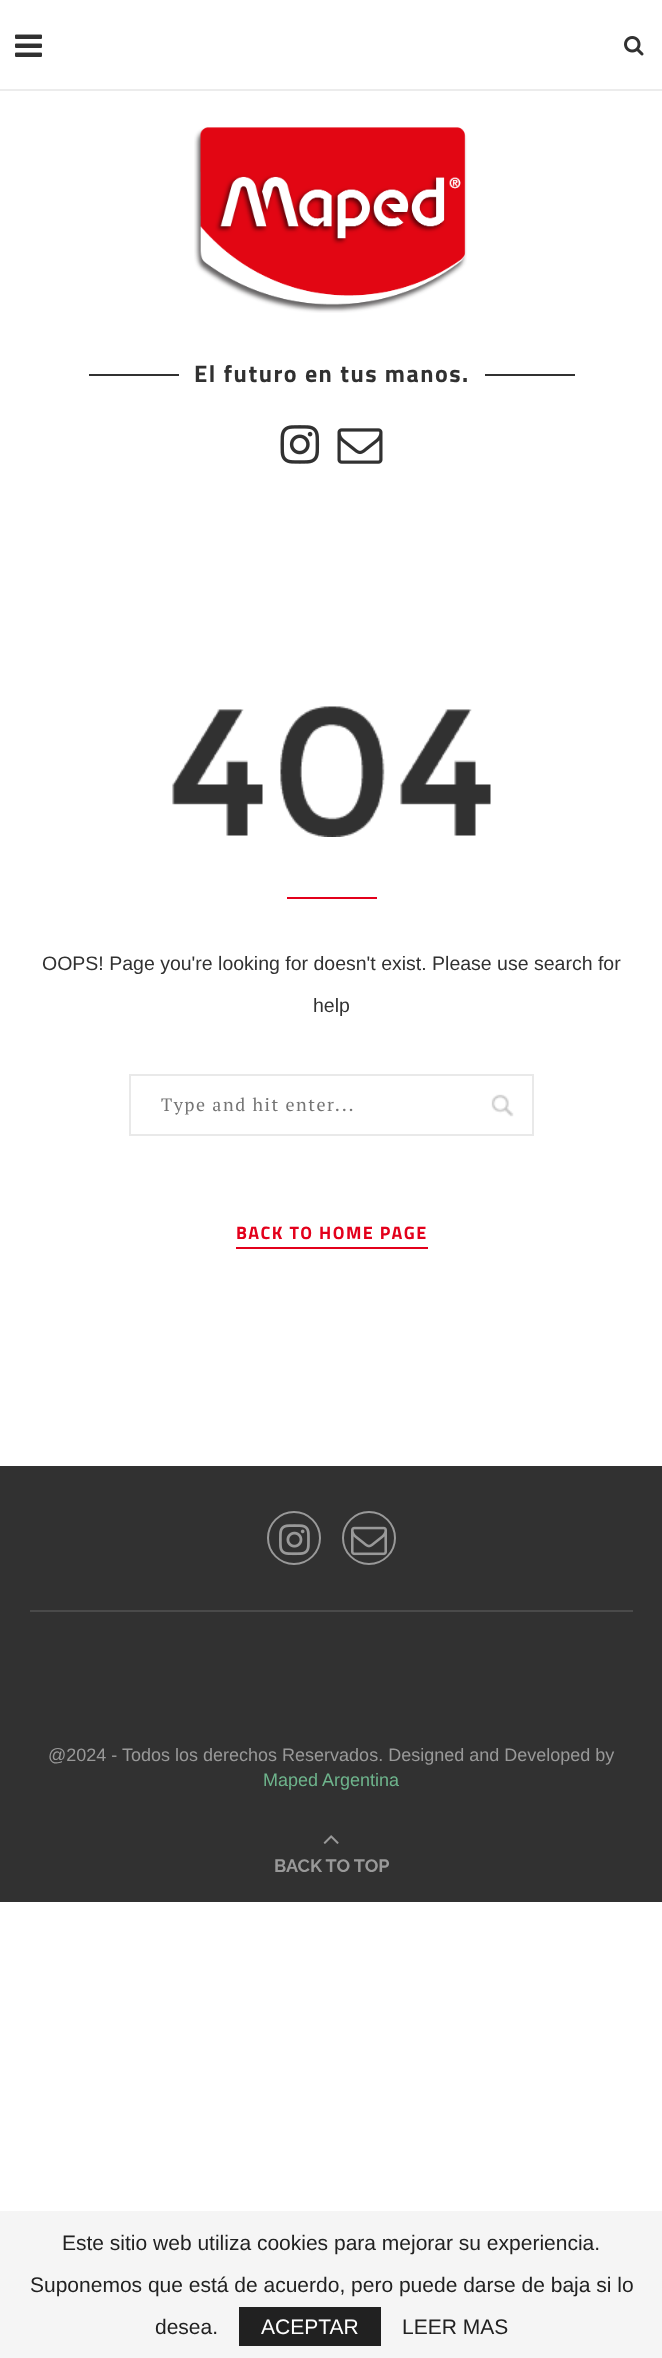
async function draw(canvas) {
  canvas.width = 662;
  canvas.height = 2358;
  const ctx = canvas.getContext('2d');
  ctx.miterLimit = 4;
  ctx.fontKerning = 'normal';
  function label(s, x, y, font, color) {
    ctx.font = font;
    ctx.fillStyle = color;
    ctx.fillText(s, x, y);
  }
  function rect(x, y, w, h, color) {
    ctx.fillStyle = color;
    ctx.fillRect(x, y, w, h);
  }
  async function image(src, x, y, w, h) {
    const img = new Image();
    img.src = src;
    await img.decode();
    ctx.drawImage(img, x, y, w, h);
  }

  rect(0, 0, 662, 2358, '#fff');
  rect(0, 89, 662, 2, '#ececec');
  await image('assets/img1.png', 15, 34, 27, 23);
  await image('assets/img2.png', 624, 36, 20, 20);
  await image('assets/img3.png', 194, 127, 273, 186);
  rect(89, 374, 90, 2, '#313131');
  ctx.letterSpacing = '1.5px';
  label('El futuro en tus manos.', 194, 382, 'bold 24px Titillium Web', '#313131');
  rect(485, 374, 90, 2, '#313131');
  await image('assets/img4.png', 280, 425, 40, 39);
  await image('assets/img5.png', 337, 428, 46, 36);
  await image('assets/img6.png', 172, 706, 319, 131);
  rect(287, 897, 90, 2, '#e3001b');
  ctx.letterSpacing = '0px';
  label('OOPS! Page you\'re looking for doesn\'t exist. Please use search for', 42, 970, '19.5px Liberation Sans', '#313131');
  label('help', 313, 1012, '19.5px Liberation Sans', '#313131');
  await image('assets/img7.png', 491, 1094, 23, 23);
  ctx.strokeStyle = '#e9e9e9';
  ctx.lineWidth = 2;
  ctx.strokeRect(130, 1075, 403, 60);
  ctx.save();
  ctx.beginPath();
  ctx.rect(161, 1094, 312, 22);
  ctx.clip();
  ctx.letterSpacing = '1.5px';
  label('Type and hit enter...', 161, 1111, '18px PT Serif', '#757575');
  ctx.restore();
  ctx.letterSpacing = '1.5px';
  label('BACK TO HOME PAGE', 236, 1239, 'bold 18px Titillium Web', '#e3001b');
  rect(236, 1247, 192, 2, '#e3001b');
  rect(0, 1466, 662, 436, '#313131');
  rect(30, 1610, 603, 2, '#4a4a4a');
  ctx.beginPath();
  ctx.arc(294, 1538, 26, 0, 2 * Math.PI);
  ctx.strokeStyle = '#999';
  ctx.stroke();
  await image('assets/img8.png', 279, 1524, 31, 32);
  ctx.beginPath();
  ctx.arc(369, 1538, 26, 0, 2 * Math.PI);
  ctx.stroke();
  await image('assets/img9.png', 351, 1526, 36, 30);
  ctx.letterSpacing = '0px';
  label('@2024 - Todos los derechos Reservados. Designed and Developed by', 48, 1761, '18px Liberation Sans', '#999');
  label('Maped Argentina', 263, 1786, '18px Liberation Sans', '#6eb48c');
  await image('assets/img10.png', 323, 1835, 16, 9);
  label('BACK TO TOP', 274, 1872, 'bold 18px Raleway', '#999');
  rect(0, 2211, 662, 147, '#f5f5f5');
  label('Este sitio web utiliza cookies para mejorar su experiencia.', 62, 2250, '21px Liberation Sans', '#212121');
  label('Suponemos que está de acuerdo, pero puede darse de baja si lo', 30, 2292, '21px Liberation Sans', '#212121');
  label('desea.', 155, 2334, '21px Liberation Sans', '#212121');
  rect(239, 2307, 142, 39, '#212121');
  label('ACEPTAR', 261, 2334, '21px Liberation Sans', '#fff');
  label('LEER MAS', 402, 2334, '21px Liberation Sans', '#212121');
}

draw(document.querySelector('canvas'));
